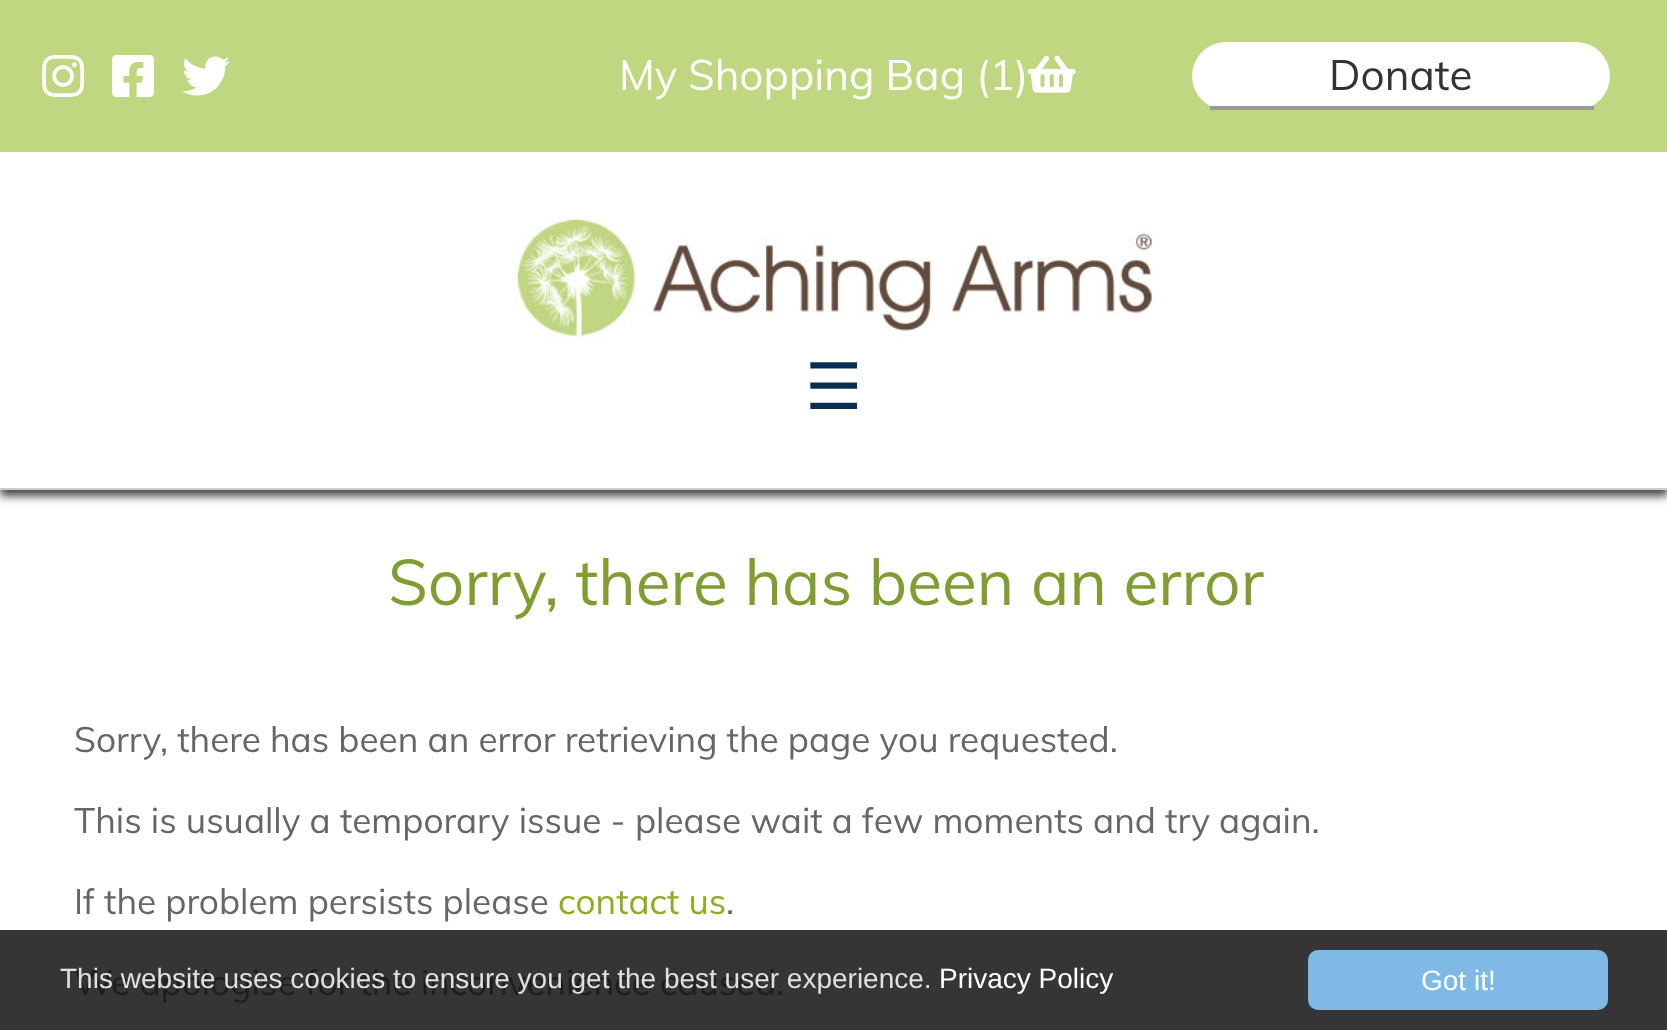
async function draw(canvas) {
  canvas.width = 1667;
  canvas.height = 1030;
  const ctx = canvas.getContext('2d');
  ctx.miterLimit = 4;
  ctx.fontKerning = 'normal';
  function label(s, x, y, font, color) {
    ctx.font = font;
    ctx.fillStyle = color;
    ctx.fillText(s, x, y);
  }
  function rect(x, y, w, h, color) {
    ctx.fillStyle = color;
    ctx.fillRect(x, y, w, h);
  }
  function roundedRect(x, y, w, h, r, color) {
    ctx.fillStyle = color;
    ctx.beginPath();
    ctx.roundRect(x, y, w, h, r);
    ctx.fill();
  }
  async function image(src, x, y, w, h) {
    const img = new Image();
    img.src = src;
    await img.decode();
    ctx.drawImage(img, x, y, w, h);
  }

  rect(0, 0, 1667, 1030, '#fff');
  rect(0, 930, 1667, 100, '#353535');
  ctx.save();
  ctx.beginPath();
  ctx.rect(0, 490, 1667, 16);
  ctx.clip();
  ctx.fillStyle = '#000000bf';
  ctx.filter = 'blur(5px)';
  ctx.beginPath();
  ctx.rect(0, 6, 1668, 490);
  ctx.fill();
  ctx.filter = 'none';
  ctx.restore();
  rect(0, 488, 1667, 2, '#ccc');
  rect(0, 0, 1667, 152, '#bed780');
  await image('assets/img1.png', 42, 55, 43, 42);
  await image('assets/img2.png', 112, 55, 42, 42);
  await image('assets/img3.png', 182, 56, 48, 40);
  label('My Shopping Bag (1)', 619, 90, '42.25px Muli', '#fff');
  await image('assets/img4.png', 1028, 55, 48, 38);
  roundedRect(1192, 42, 418, 68, 34, '#fff');
  label('Donate', 1329, 90, '42.25px Muli', '#333');
  rect(1210, 106, 384, 4, '#999');
  await image('assets/img5.png', 514, 216, 640, 122);
  label('☰', 805, 409, '64px DejaVu Sans', '#0c2d52');
  label('Sorry, there has been an error', 388, 605, '64px Muli', '#809d31');
  label('Sorry, there has been an error retrieving the page you requested.', 74, 752, '35.2px Muli', '#666');
  label('This is usually a temporary issue - please wait a few moments and try again.', 74, 833, '35.2px Muli', '#666');
  label('If the problem persists please', 74, 914, '35.2px Muli', '#666');
  label('contact us', 558, 914, '35.2px Muli', '#8fac1e');
  label('.', 726, 914, '35.2px Muli', '#666');
  label('We apologise for the inconvenience caused.', 74, 995, '35.2px Muli', '#1e1e1e');
  label('This website uses cookies to ensure you get the best user experience.', 60, 988, '28px Liberation Sans', '#e0e0e0');
  label('Privacy Policy', 939, 988, '28px Liberation Sans', '#fff');
  roundedRect(1308, 950, 300, 60, 10, '#7fbae6');
  label('Got it!', 1421, 990, '28px Liberation Sans', '#fff');
}

draw(document.querySelector('canvas'));
